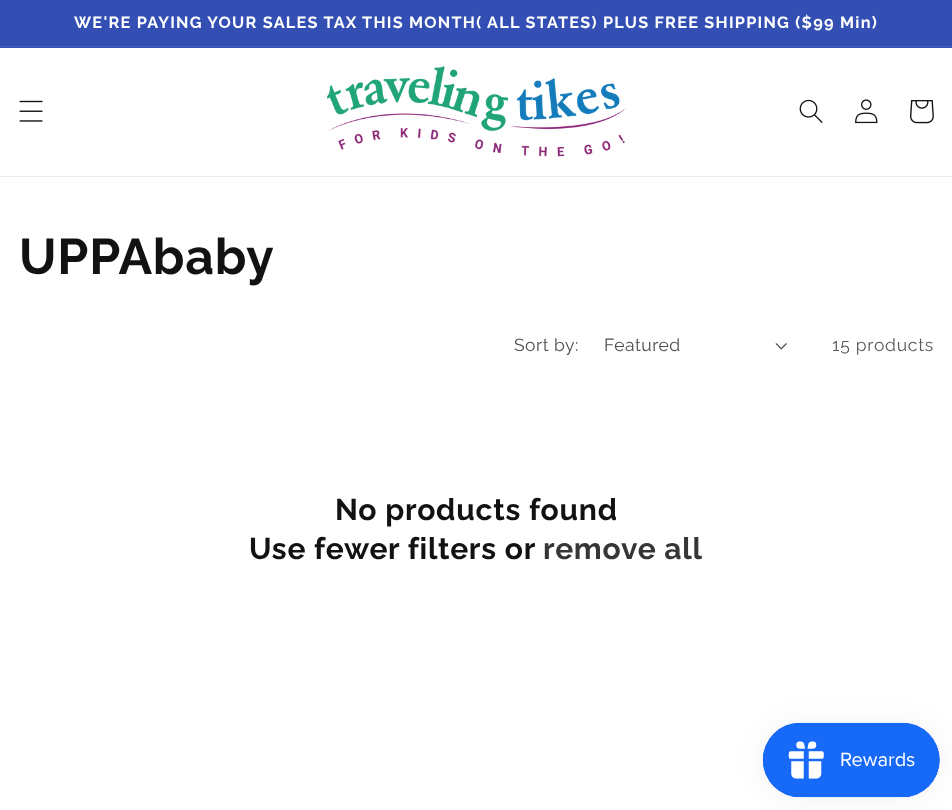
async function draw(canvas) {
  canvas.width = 952;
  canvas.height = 810;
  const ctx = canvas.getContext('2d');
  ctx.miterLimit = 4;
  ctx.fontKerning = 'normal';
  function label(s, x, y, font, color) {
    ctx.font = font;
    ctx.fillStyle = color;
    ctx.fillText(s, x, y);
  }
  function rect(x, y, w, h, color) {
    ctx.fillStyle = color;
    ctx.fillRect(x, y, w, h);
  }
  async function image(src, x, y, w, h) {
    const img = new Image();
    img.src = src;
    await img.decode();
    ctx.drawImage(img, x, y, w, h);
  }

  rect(0, 0, 952, 810, '#fff');
  rect(0, 0, 952, 48, '#334fb4');
  rect(0, 46, 952, 1, '#435dba');
  ctx.letterSpacing = '1.25px';
  label('WE\'RE PAYING YOUR SALES TAX THIS MONTH( ALL STATES) PLUS FREE SHIPPING ($99 Min)', 74, 28, 'bold 16.25px Raleway', '#fff');
  rect(0, 176, 952, 1, '#ececec');
  await image('assets/img1.png', 19, 100, 24, 22);
  await image('assets/img2.png', 327, 66, 299, 91);
  await image('assets/img3.png', 799, 99, 24, 24);
  await image('assets/img4.png', 855, 99, 23, 25);
  await image('assets/img5.png', 910, 100, 24, 24);
  ctx.letterSpacing = '0.75px';
  label('UPPAbaby', 19, 274, 'bold 50px Raleway', '#121212');
  ctx.letterSpacing = '0.5px';
  label('Sort by:', 514, 351, '17.5px Raleway', '#4d4d4d');
  label('Featured', 604, 351, '17.5px Raleway', '#4d4d4d');
  await image('assets/img6.png', 775, 343, 12, 7);
  ctx.letterSpacing = '0.75px';
  label('15 products', 832, 351, '17.5px Raleway', '#595959');
  label('No products found', 335, 520, 'bold 30px Raleway', '#121212');
  label('Use fewer filters or', 249, 559, 'bold 30px Raleway', '#121212');
  label('remove all', 543, 559, 'bold 30px Raleway', '#363636');
  ctx.fillStyle = '#0000000d';
  ctx.filter = 'blur(15.5px)';
  ctx.beginPath();
  ctx.roundRect(763, 723, 177, 75, 37.5);
  ctx.fill();
  ctx.filter = 'none';
  await image('assets/img7.png', 762, 722, 178, 76);
}

draw(document.querySelector('canvas'));
